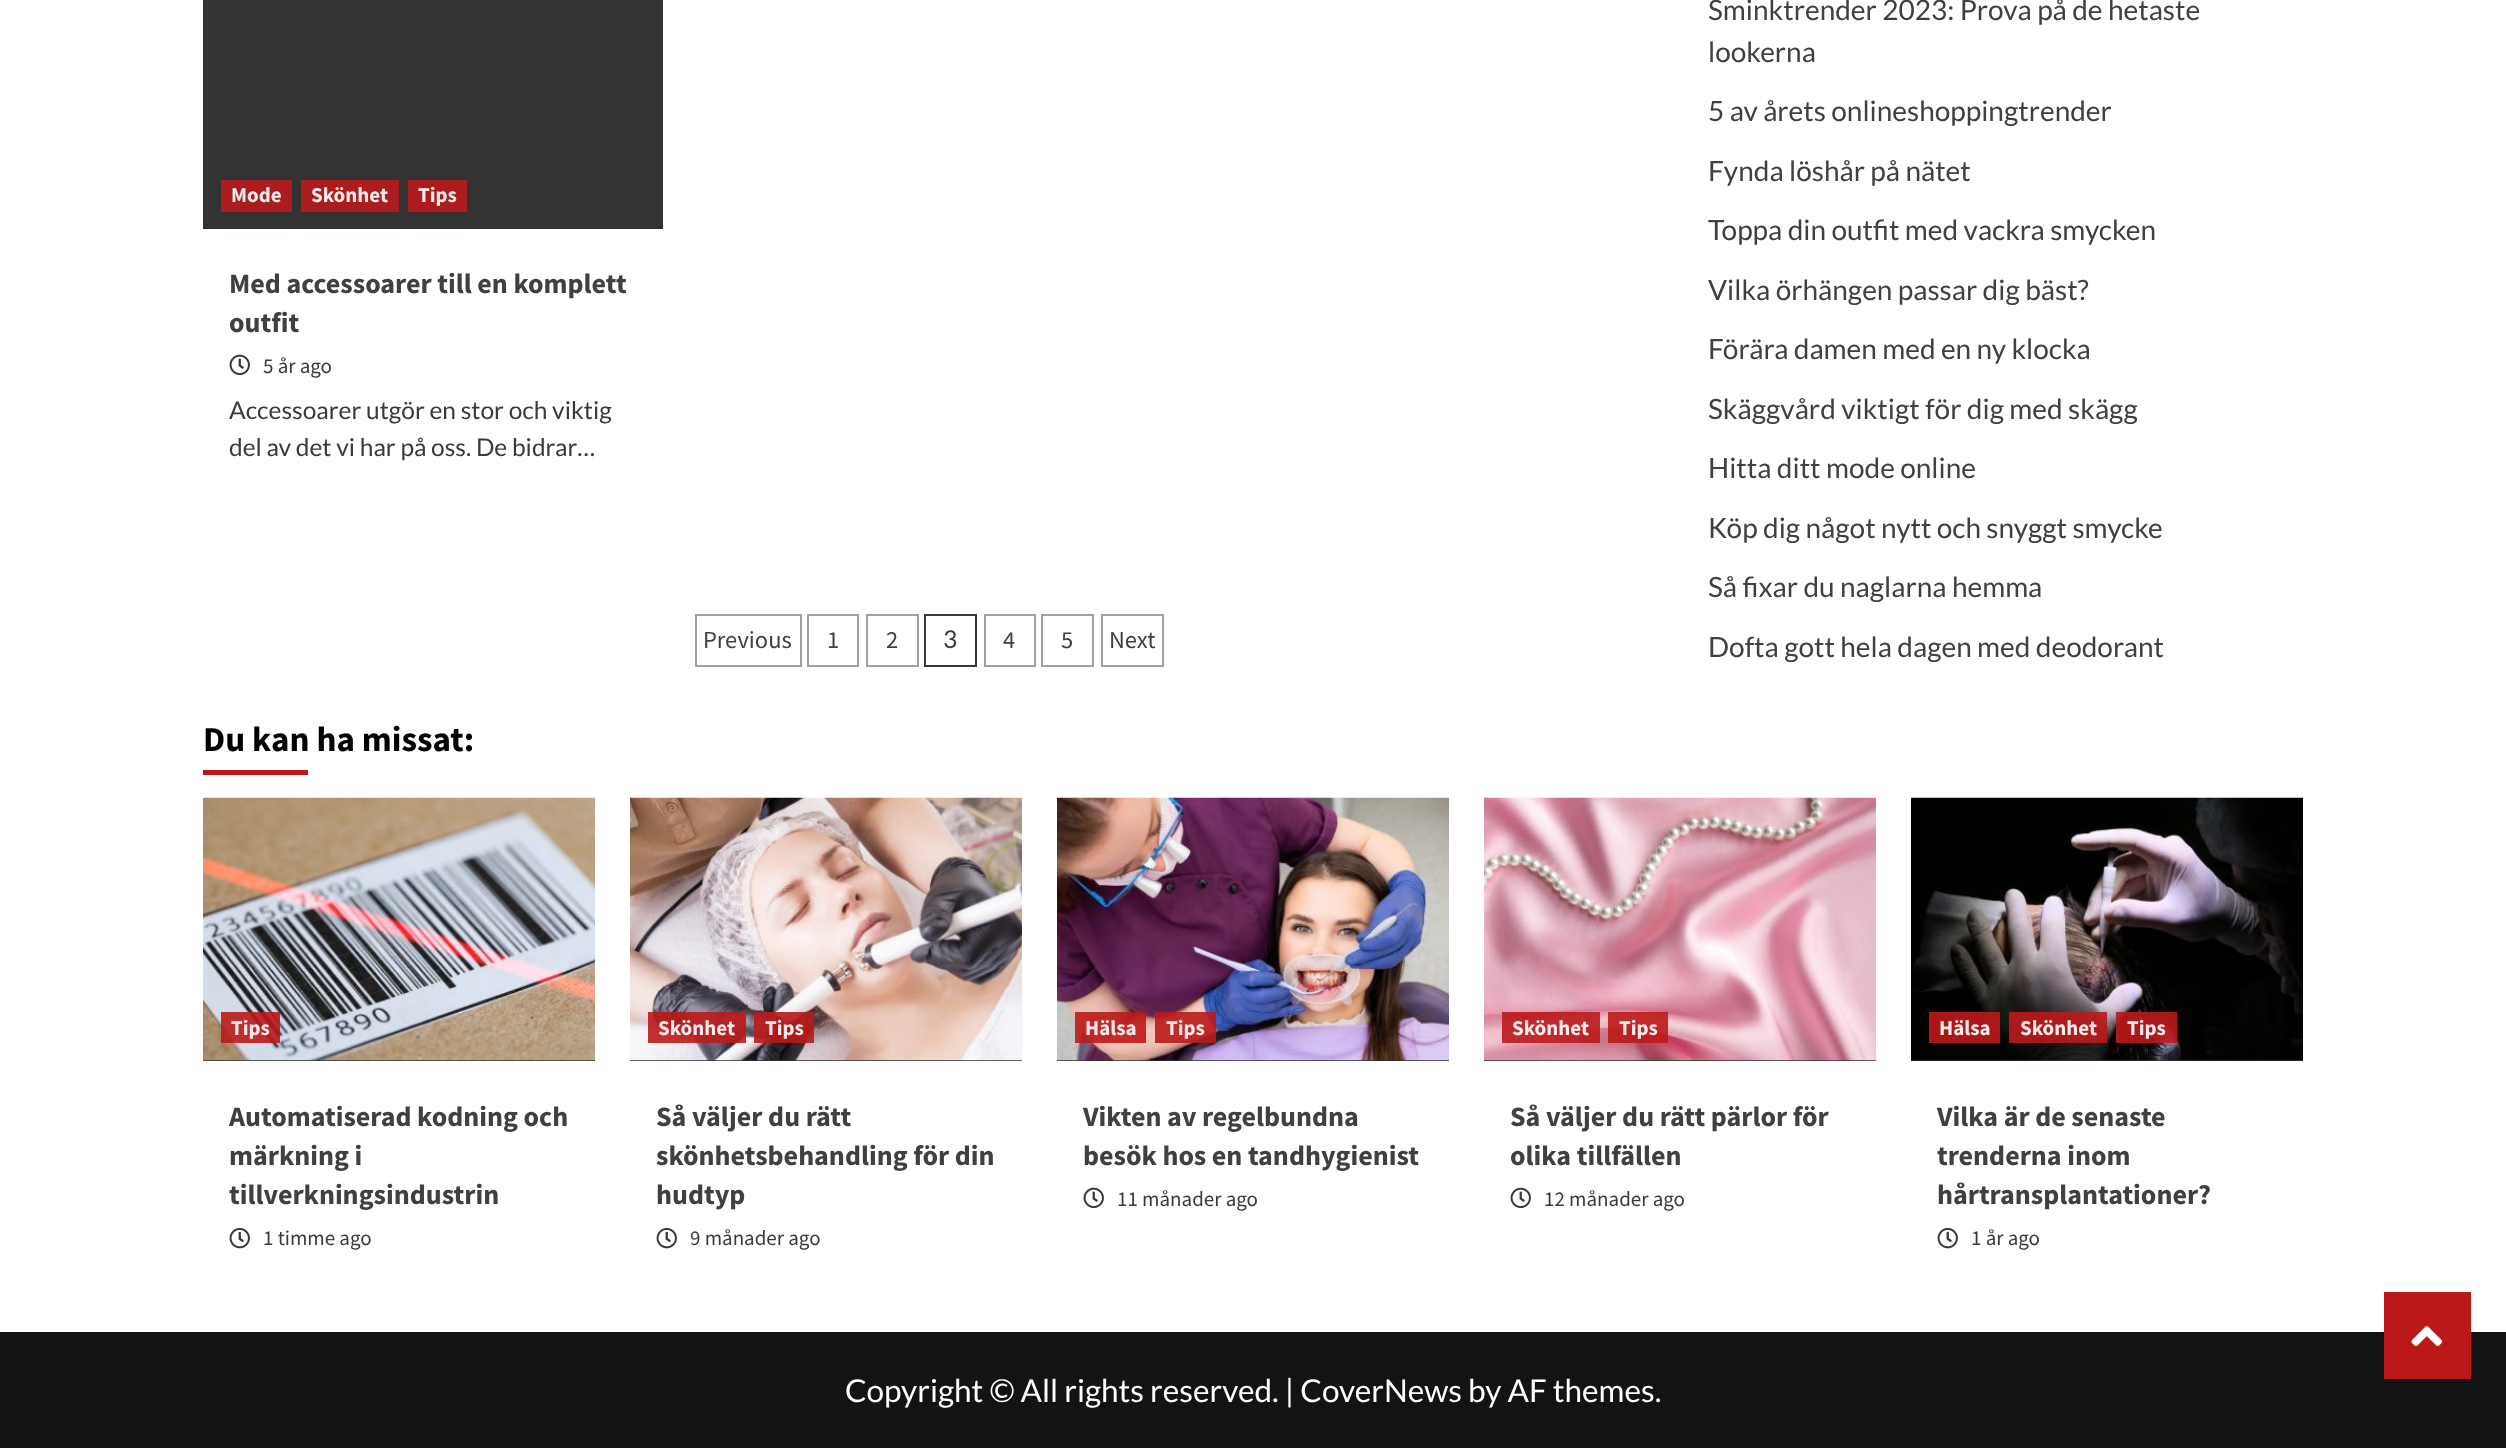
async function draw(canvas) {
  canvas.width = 2506;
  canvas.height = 1448;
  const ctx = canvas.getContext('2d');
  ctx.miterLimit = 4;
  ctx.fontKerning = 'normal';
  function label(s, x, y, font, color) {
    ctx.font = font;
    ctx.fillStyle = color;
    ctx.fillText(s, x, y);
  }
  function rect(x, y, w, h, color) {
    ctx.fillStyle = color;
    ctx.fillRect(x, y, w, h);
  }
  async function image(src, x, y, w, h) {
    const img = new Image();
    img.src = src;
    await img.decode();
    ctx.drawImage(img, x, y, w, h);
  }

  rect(0, 0, 2506, 1448, '#fff');
  rect(203, 0, 460, 229, '#333');
  rect(221, 180, 71, 32, '#ad1c1c');
  label('Mode', 231, 202, 'bold 21px Source Sans Pro', '#ebebeb');
  rect(301, 180, 98, 32, '#ad1c1c');
  label('Skönhet', 311, 202, 'bold 21px Source Sans Pro', '#ebebeb');
  rect(408, 180, 59, 32, '#ad1c1c');
  label('Tips', 418, 202, 'bold 21px Source Sans Pro', '#ebebeb');
  label('Med accessoarer till en komplett', 229, 293, 'bold 28px Source Sans Pro', '#404040');
  label('outfit', 229, 332, 'bold 28px Source Sans Pro', '#404040');
  await image('assets/img1.png', 229, 354, 21, 22);
  label('5 år ago', 263, 373, '21px Source Sans Pro', '#3a3a3a');
  label('Accessoarer utgör en stor och viktig', 229, 419, '24.5px Lato', '#3a3a3a');
  label('del av det vi har på oss. De bidrar…', 229, 456, '24.5px Lato', '#3a3a3a');
  ctx.strokeStyle = '#a0a0a0';
  ctx.lineWidth = 2;
  ctx.strokeRect(696, 615, 105, 51);
  label('Previous', 703, 648, '24.5px Source Sans Pro', '#404040');
  ctx.strokeRect(808, 615, 50, 51);
  label('1', 827, 648, '24.5px Source Sans Pro', '#404040');
  ctx.strokeRect(867, 615, 51, 51);
  label('2', 886, 648, '24.5px Source Sans Pro', '#404040');
  ctx.strokeStyle = '#3a3a3a';
  ctx.strokeRect(925, 615, 51, 51);
  label('3', 943, 648, '24.5px Lato', '#3a3a3a');
  ctx.strokeStyle = '#a0a0a0';
  ctx.strokeRect(985, 615, 50, 51);
  label('4', 1003, 648, '24.5px Source Sans Pro', '#404040');
  ctx.strokeRect(1042, 615, 51, 51);
  label('5', 1061, 648, '24.5px Source Sans Pro', '#404040');
  ctx.strokeRect(1102, 615, 61, 51);
  label('Next', 1109, 648, '24.5px Source Sans Pro', '#404040');
  label('Sminktrender 2023: Prova på de hetaste', 1708, 20, '28px Lato', '#404040');
  label('lookerna', 1708, 62, '28px Lato', '#404040');
  label('5 av årets onlineshoppingtrender', 1708, 121, '28px Lato', '#404040');
  label('Fynda löshår på nätet', 1708, 181, '28px Lato', '#404040');
  label('Toppa din outfit med vackra smycken', 1708, 240, '28px Lato', '#404040');
  label('Vilka örhängen passar dig bäst?', 1708, 300, '28px Lato', '#404040');
  label('Förära damen med en ny klocka', 1708, 359, '28px Lato', '#404040');
  label('Skäggvård viktigt för dig med skägg', 1708, 419, '28px Lato', '#404040');
  label('Hitta ditt mode online', 1708, 478, '28px Lato', '#404040');
  label('Köp dig något nytt och snyggt smycke', 1708, 538, '28px Lato', '#404040');
  label('Så fixar du naglarna hemma', 1708, 597, '28px Lato', '#404040');
  label('Dofta gott hela dagen med deodorant', 1708, 657, '28px Lato', '#404040');
  label('Du kan ha missat:', 203, 751, 'bold 35px Source Sans Pro', '#000');
  rect(203, 770, 105, 5, '#bb1919');
  rect(203, 1060, 392, 1, '#333');
  await image('assets/img2.png', 203, 797, 392, 264);
  rect(221, 1012, 59, 31, '#bb1919e6');
  label('Tips', 231, 1035, 'bold 21px Source Sans Pro', '#f8eaea');
  label('Automatiserad kodning och', 229, 1126, 'bold 28px Source Sans Pro', '#404040');
  label('märkning i', 229, 1165, 'bold 28px Source Sans Pro', '#404040');
  label('tillverkningsindustrin', 229, 1204, 'bold 28px Source Sans Pro', '#404040');
  await image('assets/img3.png', 229, 1227, 21, 22);
  label('1 timme ago', 263, 1245, '21px Source Sans Pro', '#3a3a3a');
  rect(630, 1060, 392, 1, '#333');
  await image('assets/img4.png', 630, 797, 392, 264);
  rect(648, 1012, 98, 31, '#bb1919e6');
  label('Skönhet', 658, 1035, 'bold 21px Source Sans Pro', '#f8eaea');
  rect(754, 1012, 60, 31, '#bb1919e6');
  label('Tips', 765, 1035, 'bold 21px Source Sans Pro', '#f8eaea');
  label('Så väljer du rätt', 656, 1126, 'bold 28px Source Sans Pro', '#404040');
  label('skönhetsbehandling för din', 656, 1165, 'bold 28px Source Sans Pro', '#404040');
  label('hudtyp', 656, 1204, 'bold 28px Source Sans Pro', '#404040');
  await image('assets/img3.png', 656, 1227, 21, 22);
  label('9 månader ago', 690, 1245, '21px Source Sans Pro', '#3a3a3a');
  rect(1057, 1060, 392, 1, '#333');
  await image('assets/img5.png', 1057, 797, 392, 264);
  rect(1075, 1012, 71, 31, '#bb1919e6');
  label('Hälsa', 1085, 1035, 'bold 21px Source Sans Pro', '#f8eaea');
  rect(1155, 1012, 61, 31, '#bb1919e6');
  label('Tips', 1166, 1035, 'bold 21px Source Sans Pro', '#f8eaea');
  label('Vikten av regelbundna', 1083, 1126, 'bold 28px Source Sans Pro', '#404040');
  label('besök hos en tandhygienist', 1083, 1165, 'bold 28px Source Sans Pro', '#404040');
  await image('assets/img1.png', 1083, 1187, 21, 22);
  label('11 månader ago', 1117, 1206, '21px Source Sans Pro', '#3a3a3a');
  rect(1484, 1060, 392, 1, '#333');
  await image('assets/img6.png', 1484, 797, 392, 264);
  rect(1502, 1012, 98, 31, '#bb1919e6');
  label('Skönhet', 1512, 1035, 'bold 21px Source Sans Pro', '#f8eaea');
  rect(1608, 1012, 60, 31, '#bb1919e6');
  label('Tips', 1619, 1035, 'bold 21px Source Sans Pro', '#f8eaea');
  label('Så väljer du rätt pärlor för', 1510, 1126, 'bold 28px Source Sans Pro', '#404040');
  label('olika tillfällen', 1510, 1165, 'bold 28px Source Sans Pro', '#404040');
  await image('assets/img1.png', 1510, 1187, 21, 22);
  label('12 månader ago', 1544, 1206, '21px Source Sans Pro', '#3a3a3a');
  rect(1911, 1060, 392, 1, '#333');
  await image('assets/img7.png', 1911, 797, 392, 264);
  rect(1929, 1012, 71, 31, '#bb1919e6');
  label('Hälsa', 1939, 1035, 'bold 21px Source Sans Pro', '#f8eaea');
  rect(2009, 1012, 98, 31, '#bb1919e6');
  label('Skönhet', 2020, 1035, 'bold 21px Source Sans Pro', '#f8eaea');
  rect(2116, 1012, 61, 31, '#bb1919e6');
  label('Tips', 2127, 1035, 'bold 21px Source Sans Pro', '#f8eaea');
  label('Vilka är de senaste', 1937, 1126, 'bold 28px Source Sans Pro', '#404040');
  label('trenderna inom', 1937, 1165, 'bold 28px Source Sans Pro', '#404040');
  label('hårtransplantationer?', 1937, 1204, 'bold 28px Source Sans Pro', '#404040');
  await image('assets/img3.png', 1937, 1227, 21, 22);
  label('1 år ago', 1971, 1245, '21px Source Sans Pro', '#3a3a3a');
  rect(0, 1332, 2506, 116, '#121314');
  label('Copyright © All rights reserved. | CoverNews by AF themes.', 845, 1402, '31.5px Lato', '#fff');
  rect(2384, 1292, 87, 87, '#bb1919');
  await image('assets/img8.png', 2411, 1326, 32, 20);
}

draw(document.querySelector('canvas'));
